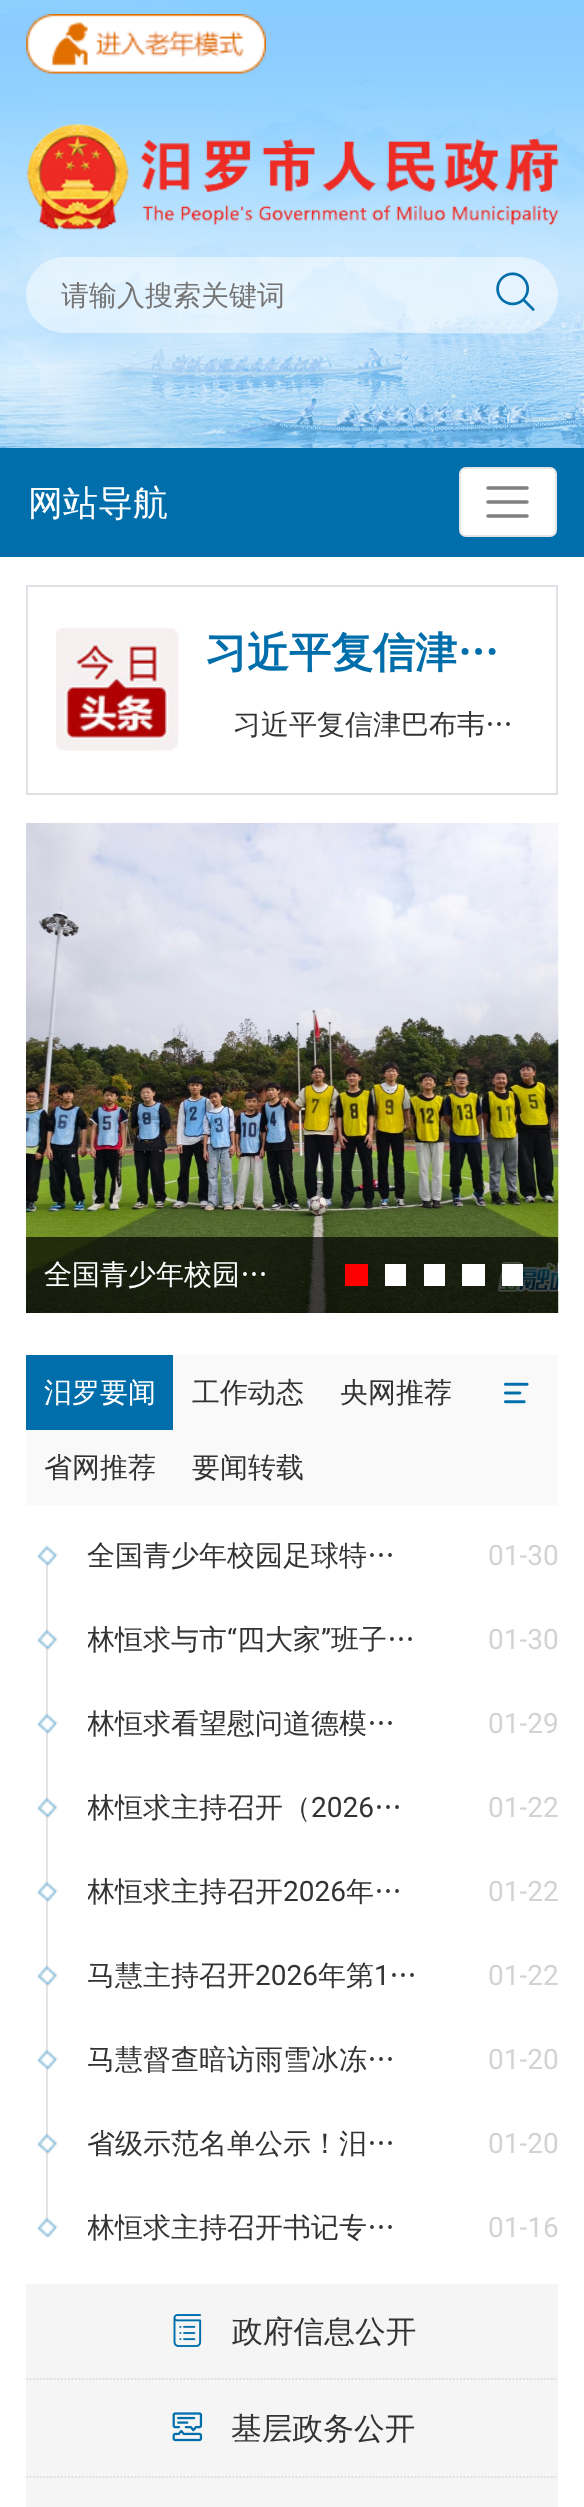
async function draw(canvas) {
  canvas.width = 584;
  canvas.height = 2507;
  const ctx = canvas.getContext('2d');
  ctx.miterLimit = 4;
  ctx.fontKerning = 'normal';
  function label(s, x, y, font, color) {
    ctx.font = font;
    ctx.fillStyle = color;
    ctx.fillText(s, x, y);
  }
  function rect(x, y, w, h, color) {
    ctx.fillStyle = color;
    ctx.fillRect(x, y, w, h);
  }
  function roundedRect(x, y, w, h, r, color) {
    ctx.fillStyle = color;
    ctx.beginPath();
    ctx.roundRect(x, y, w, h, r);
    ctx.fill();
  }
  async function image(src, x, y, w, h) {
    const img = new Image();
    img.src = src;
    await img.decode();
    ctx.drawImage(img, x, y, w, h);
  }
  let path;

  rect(0, 0, 584, 2507, '#fff');
  await image('assets/img1.png', 0, 0, 584, 448);
  await image('assets/img2.png', 26, 14, 240, 60);
  await image('assets/img3.png', 26, 124, 533, 106);
  roundedRect(26, 257, 532, 76, 38, '#ffffff7d');
  label('请输入搜索关键词', 61, 305, '500 28px WenQuanYi Zen Hei', '#757575');
  await image('assets/img4.png', 496, 272, 39, 39);
  rect(0, 448, 584, 109, '#006eab');
  label('网站导航', 28, 515, '500 35px WenQuanYi Zen Hei', '#fff');
  roundedRect(459, 467, 98, 70, 7, '#fff');
  ctx.beginPath();
  ctx.roundRect(460, 468, 96, 68, 6);
  ctx.strokeStyle = '#0000001a';
  ctx.lineWidth = 2;
  ctx.stroke();
  path = new Path2D('M488 488H527M488 502H527M488 516H527');
  ctx.strokeStyle = '#808080';
  ctx.lineWidth = 3.5;
  ctx.lineCap = 'round';
  ctx.stroke(path);
  ctx.strokeStyle = '#dee2e6';
  ctx.lineWidth = 2;
  ctx.strokeRect(27, 586, 530, 208);
  await image('assets/img5.png', 56, 628, 123, 123);
  label('习近平复信津…', 205, 667, 'bold 42px WenQuanYi Zen Hei', '#006eab');
  label('习近平复信津巴布韦…', 233, 734, '500 28px WenQuanYi Zen Hei', '#333');
  await image('assets/img6.png', 26, 823, 533, 490);
  rect(26, 1237, 532, 76, '#000000b3');
  label('全国青少年校园…', 44, 1284, '500 28px WenQuanYi Zen Hei', '#fff');
  rect(345, 1264, 23, 22, '#f00');
  rect(385, 1264, 21, 22, '#fff');
  rect(424, 1264, 21, 22, '#fff');
  rect(462, 1264, 23, 22, '#fff');
  rect(502, 1264, 21, 22, '#fff');
  rect(26, 1355, 532, 150, '#f9f9f9');
  rect(26, 1355, 147, 75, '#006eab');
  label('汨罗要闻', 44, 1402, '500 28px WenQuanYi Zen Hei', '#fff');
  label('工作动态', 192, 1402, '500 28px WenQuanYi Zen Hei', '#333');
  label('央网推荐', 340, 1402, '500 28px WenQuanYi Zen Hei', '#333');
  label('省网推荐', 44, 1477, '500 28px WenQuanYi Zen Hei', '#333');
  label('要闻转载', 192, 1477, '500 28px WenQuanYi Zen Hei', '#333');
  await image('assets/img7.png', 504, 1382, 25, 22);
  rect(46, 1554, 2, 672, '#e3e3e3');
  await image('assets/img8.png', 36, 1545, 22, 22);
  label('全国青少年校园足球特…', 87, 1565, '500 28px WenQuanYi Zen Hei', '#333');
  label('01-30', 488, 1565, '28px Roboto', '#d3d3d3');
  await image('assets/img9.png', 36, 1629, 22, 22);
  ctx.save();
  ctx.beginPath();
  ctx.rect(88, 1598, 330, 84);
  ctx.clip();
  label('林恒求与市', 87, 1649, '500 28px WenQuanYi Zen Hei', '#333');
  ctx.restore();
  label('“', 227, 1649, '28px Roboto', '#333');
  label('四大家', 237, 1649, '500 28px WenQuanYi Zen Hei', '#333');
  label('”', 321, 1649, '28px Roboto', '#333');
  label('班子…', 331, 1649, '500 28px WenQuanYi Zen Hei', '#333');
  label('01-30', 488, 1649, '28px Roboto', '#d3d3d3');
  await image('assets/img9.png', 36, 1713, 22, 22);
  ctx.save();
  ctx.beginPath();
  ctx.rect(88, 1682, 330, 84);
  ctx.clip();
  label('林恒求看望慰问道德模…', 87, 1733, '500 28px WenQuanYi Zen Hei', '#333');
  ctx.restore();
  label('01-29', 488, 1733, '28px Roboto', '#d3d3d3');
  await image('assets/img10.png', 36, 1797, 22, 22);
  ctx.save();
  ctx.beginPath();
  ctx.rect(88, 1766, 330, 84);
  ctx.clip();
  label('林恒求主持召开（', 87, 1817, '500 28px WenQuanYi Zen Hei', '#333');
  ctx.restore();
  label('2026', 311, 1817, '28px Roboto', '#333');
  label('…', 374, 1817, '500 28px WenQuanYi Zen Hei', '#333');
  label('01-22', 488, 1817, '28px Roboto', '#d3d3d3');
  await image('assets/img11.png', 36, 1881, 22, 22);
  ctx.save();
  ctx.beginPath();
  ctx.rect(88, 1850, 330, 84);
  ctx.clip();
  label('林恒求主持召开', 87, 1901, '500 28px WenQuanYi Zen Hei', '#333');
  ctx.restore();
  label('2026', 283, 1901, '28px Roboto', '#333');
  label('年…', 346, 1901, '500 28px WenQuanYi Zen Hei', '#333');
  label('01-22', 488, 1901, '28px Roboto', '#d3d3d3');
  await image('assets/img9.png', 36, 1965, 22, 22);
  label('马慧主持召开', 87, 1985, '500 28px WenQuanYi Zen Hei', '#333');
  label('2026', 255, 1985, '28px Roboto', '#333');
  label('年第', 318, 1985, '500 28px WenQuanYi Zen Hei', '#333');
  label('1', 374, 1985, '28px Roboto', '#333');
  label('…', 389, 1985, '500 28px WenQuanYi Zen Hei', '#333');
  label('01-22', 488, 1985, '28px Roboto', '#d3d3d3');
  await image('assets/img9.png', 36, 2049, 22, 22);
  label('马慧督查暗访雨雪冰冻…', 87, 2069, '500 28px WenQuanYi Zen Hei', '#333');
  label('01-20', 488, 2069, '28px Roboto', '#d3d3d3');
  await image('assets/img9.png', 36, 2133, 22, 22);
  label('省级示范名单公示！汨…', 87, 2153, '500 28px WenQuanYi Zen Hei', '#333');
  label('01-20', 488, 2153, '28px Roboto', '#d3d3d3');
  await image('assets/img12.png', 36, 2217, 22, 22);
  ctx.save();
  ctx.beginPath();
  ctx.rect(88, 2186, 330, 84);
  ctx.clip();
  label('林恒求主持召开书记专…', 87, 2237, '500 28px WenQuanYi Zen Hei', '#333');
  ctx.restore();
  label('01-16', 488, 2237, '28px Roboto', '#d3d3d3');
  rect(26, 2284, 532, 223, '#f5f5f5');
  path = new Path2D('M26 2379H558');
  ctx.strokeStyle = '#ddd';
  ctx.lineWidth = 1.8;
  ctx.lineCap = 'butt';
  ctx.setLineDash([1.75, 1.75]);
  ctx.stroke(path);
  await image('assets/img13.png', 173, 2314, 29, 33);
  label('政府信息公开', 232, 2342, '500 30.75px WenQuanYi Zen Hei', '#333');
  path = new Path2D('M26 2477H558');
  ctx.stroke(path);
  await image('assets/img14.png', 172, 2412, 31, 30);
  label('基层政务公开', 231, 2439, '500 30.75px WenQuanYi Zen Hei', '#333');
}

draw(document.querySelector('canvas'));
